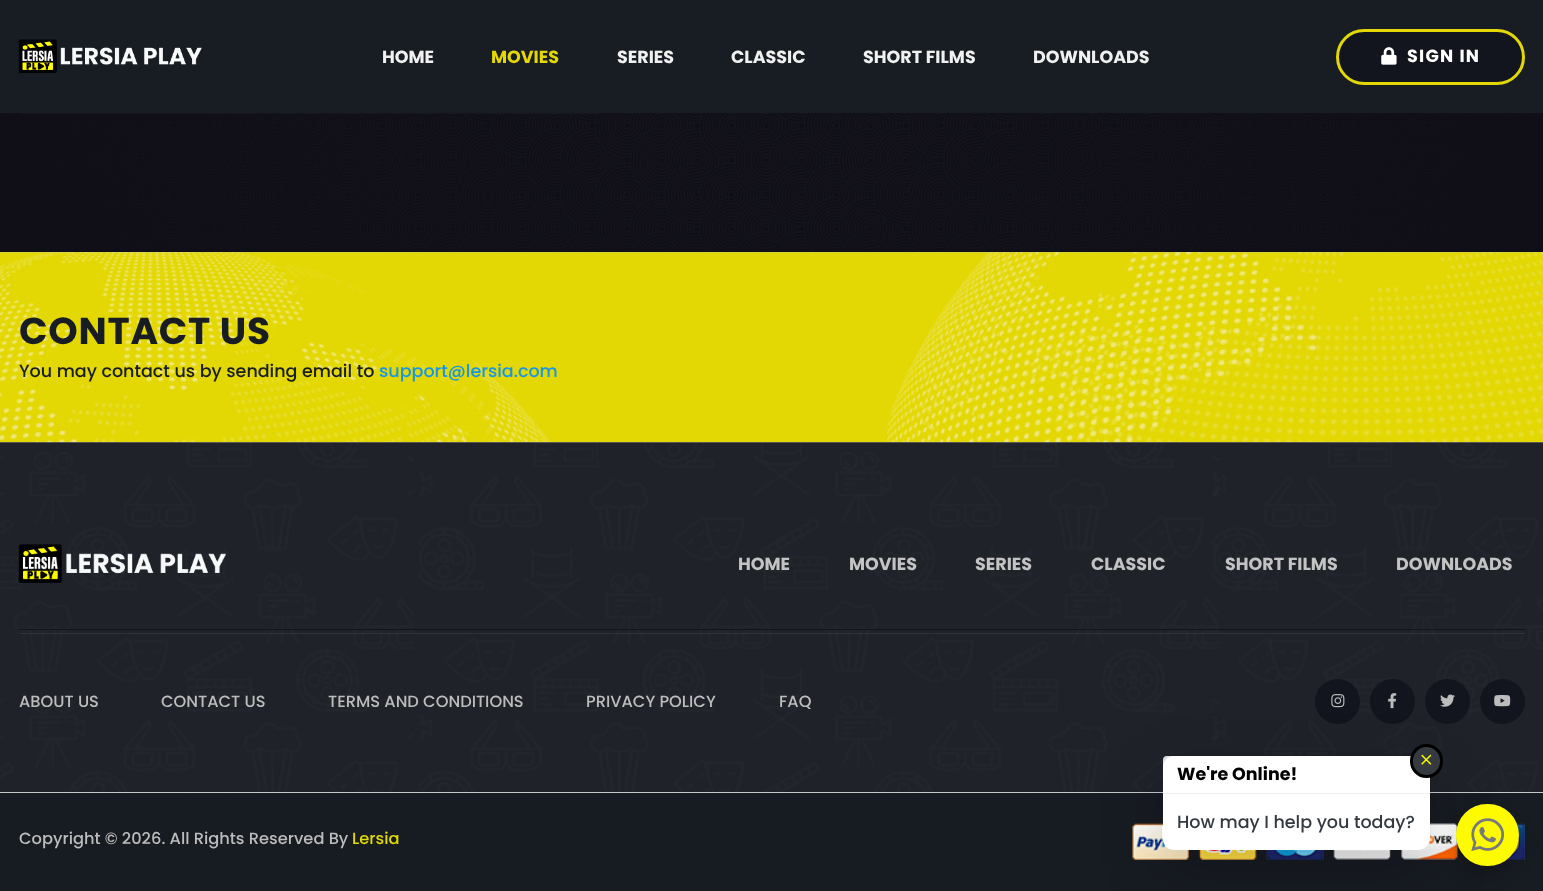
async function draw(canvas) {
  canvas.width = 1543;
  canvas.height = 891;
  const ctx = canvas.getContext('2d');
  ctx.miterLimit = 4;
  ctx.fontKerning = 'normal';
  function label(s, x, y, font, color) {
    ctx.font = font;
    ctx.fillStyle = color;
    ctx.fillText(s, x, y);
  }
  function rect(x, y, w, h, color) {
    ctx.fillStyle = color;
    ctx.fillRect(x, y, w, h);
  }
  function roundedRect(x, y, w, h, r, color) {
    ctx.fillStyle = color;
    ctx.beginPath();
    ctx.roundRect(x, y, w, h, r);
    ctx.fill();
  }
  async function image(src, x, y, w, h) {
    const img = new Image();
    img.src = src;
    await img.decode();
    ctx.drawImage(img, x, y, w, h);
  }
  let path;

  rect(0, 0, 1543, 891, '#fff');
  await image('assets/img3.png', 0, 113, 1543, 140);
  ctx.fillStyle = '#66666675';
  ctx.filter = 'blur(2px)';
  ctx.beginPath();
  ctx.rect(19, 108, 581, 3);
  ctx.fill();
  ctx.filter = 'none';
  rect(0, 0, 1543, 113, '#171d22');
  await image('assets/img1.png', 18, 39, 184, 34);
  label('HOME', 382, 63, 'bold 17.5px Poppins', '#f0f0f0');
  label('MOVIES', 491, 63, 'bold 17.5px Poppins', '#e4d804');
  label('SERIES', 617, 63, 'bold 17.5px Poppins', '#f0f0f0');
  label('CLASSIC', 731, 63, 'bold 17.5px Poppins', '#f0f0f0');
  label('SHORT FILMS', 863, 63, 'bold 17.5px Poppins', '#f0f0f0');
  label('DOWNLOADS', 1033, 63, 'bold 17.5px Poppins', '#f0f0f0');
  ctx.fillStyle = '#12151e';
  ctx.beginPath();
  ctx.roundRect(1337.5, 30.5, 186, 53, 26.5);
  ctx.fill();
  ctx.strokeStyle = '#e4d804';
  ctx.lineWidth = 3;
  ctx.stroke();
  await image('assets/img2.png', 1381, 47, 16, 18);
  ctx.letterSpacing = '1.25px';
  label('SIGN IN', 1407, 62, 'bold 17.5px Poppins', '#fff');
  await image('assets/img4.png', 0, 252, 1543, 191);
  ctx.letterSpacing = '0.75px';
  label('CONTACT US', 19, 344, 'bold 37.5px Poppins', '#171d22');
  ctx.letterSpacing = '0px';
  label('You may contact us by sending email to', 19, 377, '500 17.5px Poppins', '#171d22');
  label('support@lersia.com', 379, 377, '500 17.5px Poppins', '#1696e7');
  await image('assets/img5.png', 0, 442, 1543, 351);
  await image('assets/img6.png', 18, 544, 208, 39);
  label('HOME', 738, 570, 'bold 17.5px Poppins', '#c3c3c3');
  label('MOVIES', 849, 570, 'bold 17.5px Poppins', '#c3c3c3');
  label('SERIES', 975, 570, 'bold 17.5px Poppins', '#c3c3c3');
  label('CLASSIC', 1091, 570, 'bold 17.5px Poppins', '#c3c3c3');
  label('SHORT FILMS', 1225, 570, 'bold 17.5px Poppins', '#c3c3c3');
  label('DOWNLOADS', 1396, 570, 'bold 17.5px Poppins', '#c3c3c3');
  rect(19, 633, 1506, 1, '#8f8f8f24');
  rect(19, 629, 1506, 1, '#12151e');
  label('ABOUT US', 19, 707, '500 16.25px Poppins', '#bcbcbc');
  label('CONTACT US', 161, 707, '500 16.25px Poppins', '#bcbcbc');
  label('TERMS AND CONDITIONS', 328, 707, '500 16.25px Poppins', '#bcbcbc');
  label('PRIVACY POLICY', 586, 707, '500 16.25px Poppins', '#bcbcbc');
  label('FAQ', 779, 707, '500 16.25px Poppins', '#bcbcbc');
  ctx.fillStyle = '#12151e';
  ctx.beginPath();
  ctx.arc(1337.5, 701.5, 22.5, 0, 2 * Math.PI);
  ctx.fill();
  await image('assets/img7.png', 1331, 694, 14, 14);
  ctx.beginPath();
  ctx.arc(1392.5, 701.5, 22.5, 0, 2 * Math.PI);
  ctx.fill();
  await image('assets/img8.png', 1388, 693, 9, 16);
  ctx.beginPath();
  ctx.arc(1447.5, 701.5, 22.5, 0, 2 * Math.PI);
  ctx.fill();
  await image('assets/img9.png', 1440, 694, 15, 13);
  ctx.beginPath();
  ctx.arc(1502.5, 701.5, 22.5, 0, 2 * Math.PI);
  ctx.fill();
  await image('assets/img10.png', 1494, 695, 17, 12);
  rect(0, 793, 1543, 98, '#171b22');
  label('Copyright © 2026. All Rights Reserved By', 19, 844, '500 16.25px Poppins', '#bcbcbc');
  label('Lersia', 352, 844, '500 16.25px Poppins', '#e4d804');
  await image('assets/img11.png', 1132, 823, 393, 37);
  ctx.save();
  path = new Path2D('M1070 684H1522V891H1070ZM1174 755H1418C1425 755 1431 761 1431 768V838C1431 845 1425 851 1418 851H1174C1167 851 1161 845 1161 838V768C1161 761 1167 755 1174 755Z');
  ctx.clip(path, 'evenodd');
  ctx.fillStyle = '#0000002e';
  ctx.filter = 'blur(30px)';
  ctx.beginPath();
  ctx.roundRect(1161, 775, 270, 96, 13);
  ctx.fill();
  ctx.filter = 'none';
  ctx.restore();
  roundedRect(1163, 756, 267, 94, 11, '#fff');
  ctx.beginPath();
  ctx.roundRect(1161.5, 755.5, 269, 95, 12.5);
  ctx.strokeStyle = '#0000001a';
  ctx.lineWidth = 1;
  ctx.stroke();
  ctx.fillStyle = '#ffffffd9';
  ctx.beginPath();
  ctx.roundRect(1163, 756, 267, 37, [4, 4, 0, 0]);
  ctx.fill();
  rect(1163, 793, 267, 1, '#f2f2f2');
  label('We\'re Online!', 1177, 780, 'bold 17.5px Poppins', '#000');
  ctx.fillStyle = '#343a40';
  ctx.beginPath();
  ctx.roundRect(1411.5, 745.5, 30, 31, 15);
  ctx.fill();
  ctx.strokeStyle = '#000';
  ctx.lineWidth = 3;
  ctx.stroke();
  await image('assets/img12.png', 1421, 754, 11, 11);
  label('How may I help you today?', 1177, 828, '500 17.5px Poppins', '#343a40');
  ctx.fillStyle = '#00000026';
  ctx.filter = 'blur(10px)';
  ctx.beginPath();
  ctx.roundRect(1456, 814, 63, 62, 31);
  ctx.fill();
  ctx.filter = 'none';
  roundedRect(1456, 804, 63, 62, 31, '#fefb00');
  await image('assets/img13.png', 1471, 818, 34, 33);
}

draw(document.querySelector('canvas'));
